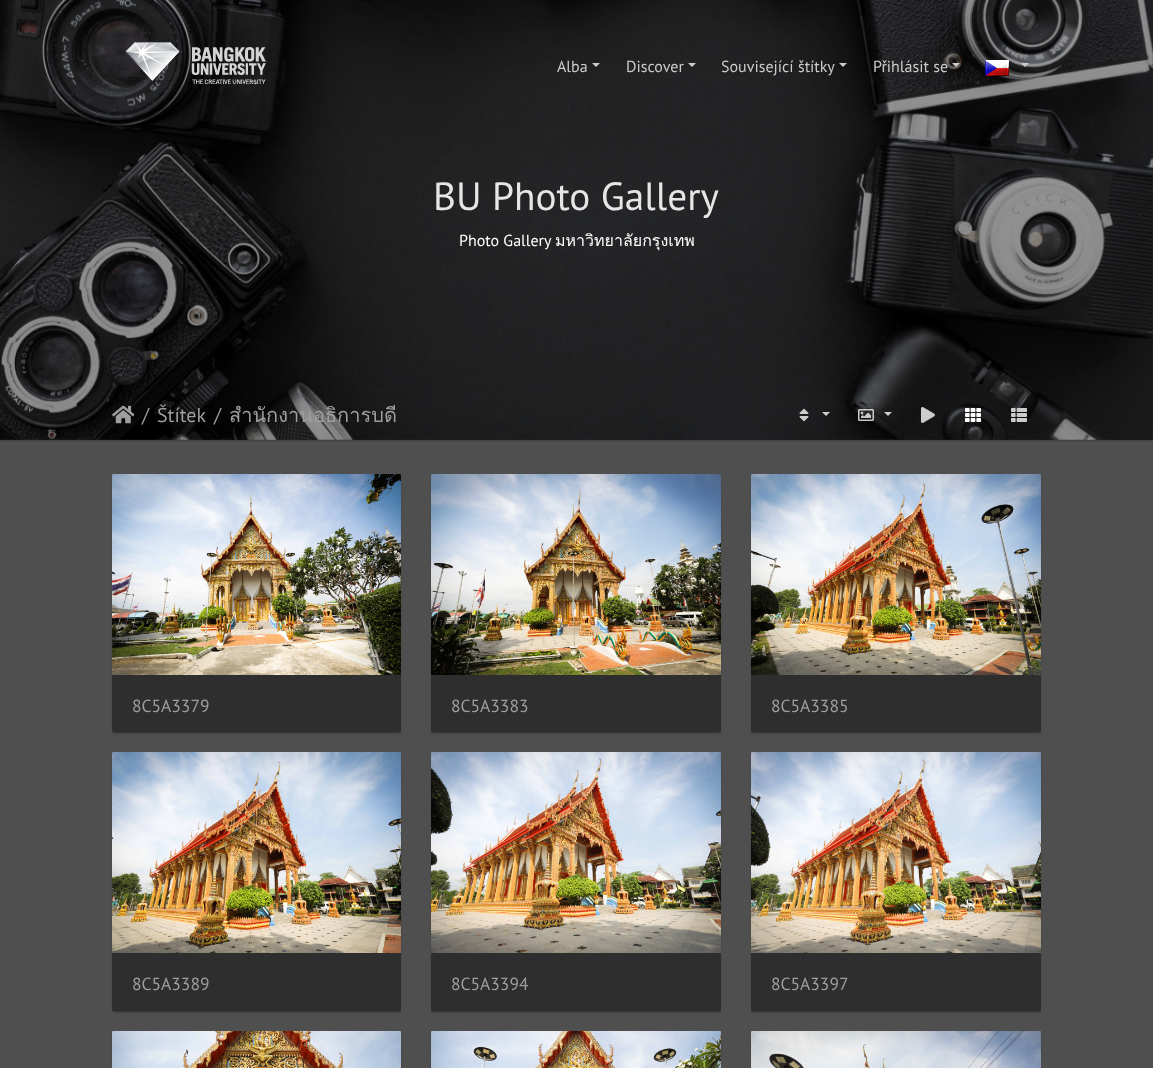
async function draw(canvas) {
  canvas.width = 1153;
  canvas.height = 1068;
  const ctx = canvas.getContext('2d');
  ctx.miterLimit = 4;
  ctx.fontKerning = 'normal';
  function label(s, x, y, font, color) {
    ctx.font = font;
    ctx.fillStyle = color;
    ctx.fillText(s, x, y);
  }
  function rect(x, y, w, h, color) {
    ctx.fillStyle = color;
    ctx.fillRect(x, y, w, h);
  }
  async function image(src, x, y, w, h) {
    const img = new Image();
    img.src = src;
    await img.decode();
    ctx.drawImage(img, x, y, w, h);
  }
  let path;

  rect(0, 0, 1153, 1068, '#4f4f4f');
  rect(0, 0, 1153, 440, '#2f2f2f');
  await image('assets/img3.png', 0, 0, 1153, 440);
  await image('assets/img1.png', 125, 42, 141, 43);
  label('Alba', 557, 72, '16px PT Sans', '#ccc');
  path = new Path2D('M592 63H600L596 67Z');
  ctx.fill(path);
  label('Discover', 626, 72, '16px PT Sans', '#ccc');
  path = new Path2D('M688 63H696L692 67Z');
  ctx.fill(path);
  label('Související štítky', 721, 72, '16px PT Sans', '#ccc');
  path = new Path2D('M839 63H847L843 67Z');
  ctx.fill(path);
  label('Přihlásit se', 873, 72, '16px PT Sans', '#ccc');
  path = new Path2D('M952 63H960L956 67Z');
  ctx.fill(path);
  await image('assets/img2.png', 985, 60, 24, 16);
  path = new Path2D('M1021 63H1029L1025 67Z');
  ctx.fill(path);
  label('BU Photo Gallery', 433, 210, '39.25px PT Sans', '#e6e6e6');
  label('Photo Gallery', 459, 246, '16px PT Sans', '#fff');
  label('มหาวิทยาลัยกรุงเทพ', 555, 246, '16px Loma', '#fff');
  ctx.save();
  ctx.beginPath();
  ctx.rect(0, 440, 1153, 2);
  ctx.clip();
  ctx.fillStyle = '#0000003d';
  ctx.filter = 'blur(1px)';
  ctx.beginPath();
  ctx.rect(0, 390, 1153, 51);
  ctx.fill();
  ctx.filter = 'none';
  ctx.restore();
  await image('assets/img4.png', 112, 405, 22, 19);
  label('/', 142, 422, '20px PT Sans', '#9e9e9e');
  label('Štítek', 157, 422, '20px PT Sans', '#9e9e9e');
  label('/', 214, 422, '20px PT Sans', '#9e9e9e');
  label('สำนักงานอธิการบดี', 229, 422, '20px Loma', '#9e9e9e');
  await image('assets/img5.png', 799, 408, 10, 14);
  ctx.fillStyle = '#ccc';
  path = new Path2D('M822 412H830L826 416Z');
  ctx.fill(path);
  await image('assets/img6.png', 858, 409, 16, 12);
  path = new Path2D('M884 412H892L888 416Z');
  ctx.fill(path);
  await image('assets/img7.png', 921, 407, 14, 16);
  await image('assets/img8.png', 965, 408, 16, 14);
  await image('assets/img9.png', 1011, 408, 16, 14);
  ctx.fillStyle = '#00000033';
  ctx.filter = 'blur(0.5px)';
  ctx.beginPath();
  ctx.rect(114, 479, 285, 254);
  ctx.fill();
  ctx.filter = 'none';
  ctx.fillStyle = '#00000024';
  ctx.filter = 'blur(1px)';
  ctx.beginPath();
  ctx.roundRect(112, 476, 289, 258, 2);
  ctx.fill();
  ctx.filter = 'none';
  await image('assets/img10.png', 112, 474, 289, 201);
  rect(112, 675, 289, 57, '#2e2e2e');
  label('8C5A3379', 132, 712, '17.5px PT Sans', '#9e9e9e');
  ctx.fillStyle = '#00000033';
  ctx.filter = 'blur(0.5px)';
  ctx.beginPath();
  ctx.rect(433, 479, 286, 254);
  ctx.fill();
  ctx.filter = 'none';
  ctx.fillStyle = '#00000024';
  ctx.filter = 'blur(1px)';
  ctx.beginPath();
  ctx.roundRect(431, 476, 290, 258, 2);
  ctx.fill();
  ctx.filter = 'none';
  await image('assets/img11.png', 431, 474, 290, 201);
  rect(431, 675, 290, 57, '#2e2e2e');
  label('8C5A3383', 451, 712, '17.5px PT Sans', '#9e9e9e');
  ctx.fillStyle = '#00000033';
  ctx.filter = 'blur(0.5px)';
  ctx.beginPath();
  ctx.rect(753, 479, 286, 254);
  ctx.fill();
  ctx.filter = 'none';
  ctx.fillStyle = '#00000024';
  ctx.filter = 'blur(1px)';
  ctx.beginPath();
  ctx.roundRect(751, 476, 290, 258, 2);
  ctx.fill();
  ctx.filter = 'none';
  await image('assets/img12.png', 751, 474, 290, 201);
  rect(751, 675, 290, 57, '#2e2e2e');
  label('8C5A3385', 771, 712, '17.5px PT Sans', '#9e9e9e');
  ctx.fillStyle = '#00000033';
  ctx.filter = 'blur(0.5px)';
  ctx.beginPath();
  ctx.rect(114, 757, 285, 255);
  ctx.fill();
  ctx.filter = 'none';
  ctx.fillStyle = '#00000024';
  ctx.filter = 'blur(1px)';
  ctx.beginPath();
  ctx.roundRect(112, 754, 289, 259, 2);
  ctx.fill();
  ctx.filter = 'none';
  await image('assets/img13.png', 112, 752, 289, 201);
  rect(112, 953, 289, 58, '#2e2e2e');
  label('8C5A3389', 132, 990, '17.5px PT Sans', '#9e9e9e');
  ctx.fillStyle = '#00000033';
  ctx.filter = 'blur(0.5px)';
  ctx.beginPath();
  ctx.rect(433, 757, 286, 255);
  ctx.fill();
  ctx.filter = 'none';
  ctx.fillStyle = '#00000024';
  ctx.filter = 'blur(1px)';
  ctx.beginPath();
  ctx.roundRect(431, 754, 290, 259, 2);
  ctx.fill();
  ctx.filter = 'none';
  await image('assets/img14.png', 431, 752, 290, 201);
  rect(431, 953, 290, 58, '#2e2e2e');
  label('8C5A3394', 451, 990, '17.5px PT Sans', '#9e9e9e');
  ctx.fillStyle = '#00000033';
  ctx.filter = 'blur(0.5px)';
  ctx.beginPath();
  ctx.rect(753, 757, 286, 255);
  ctx.fill();
  ctx.filter = 'none';
  ctx.fillStyle = '#00000024';
  ctx.filter = 'blur(1px)';
  ctx.beginPath();
  ctx.roundRect(751, 754, 290, 259, 2);
  ctx.fill();
  ctx.filter = 'none';
  await image('assets/img15.png', 751, 752, 290, 201);
  rect(751, 953, 290, 58, '#2e2e2e');
  label('8C5A3397', 771, 990, '17.5px PT Sans', '#9e9e9e');
  ctx.fillStyle = '#00000024';
  ctx.filter = 'blur(1px)';
  ctx.beginPath();
  ctx.roundRect(112, 1033, 289, 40, 2);
  ctx.fill();
  ctx.filter = 'none';
  await image('assets/img16.png', 112, 1031, 289, 37);
  ctx.filter = 'blur(1px)';
  ctx.beginPath();
  ctx.roundRect(431, 1033, 290, 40, 2);
  ctx.fill();
  ctx.filter = 'none';
  await image('assets/img17.png', 431, 1031, 290, 37);
  ctx.filter = 'blur(1px)';
  ctx.beginPath();
  ctx.roundRect(751, 1033, 290, 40, 2);
  ctx.fill();
  ctx.filter = 'none';
  await image('assets/img18.png', 751, 1031, 290, 37);
}

draw(document.querySelector('canvas'));
